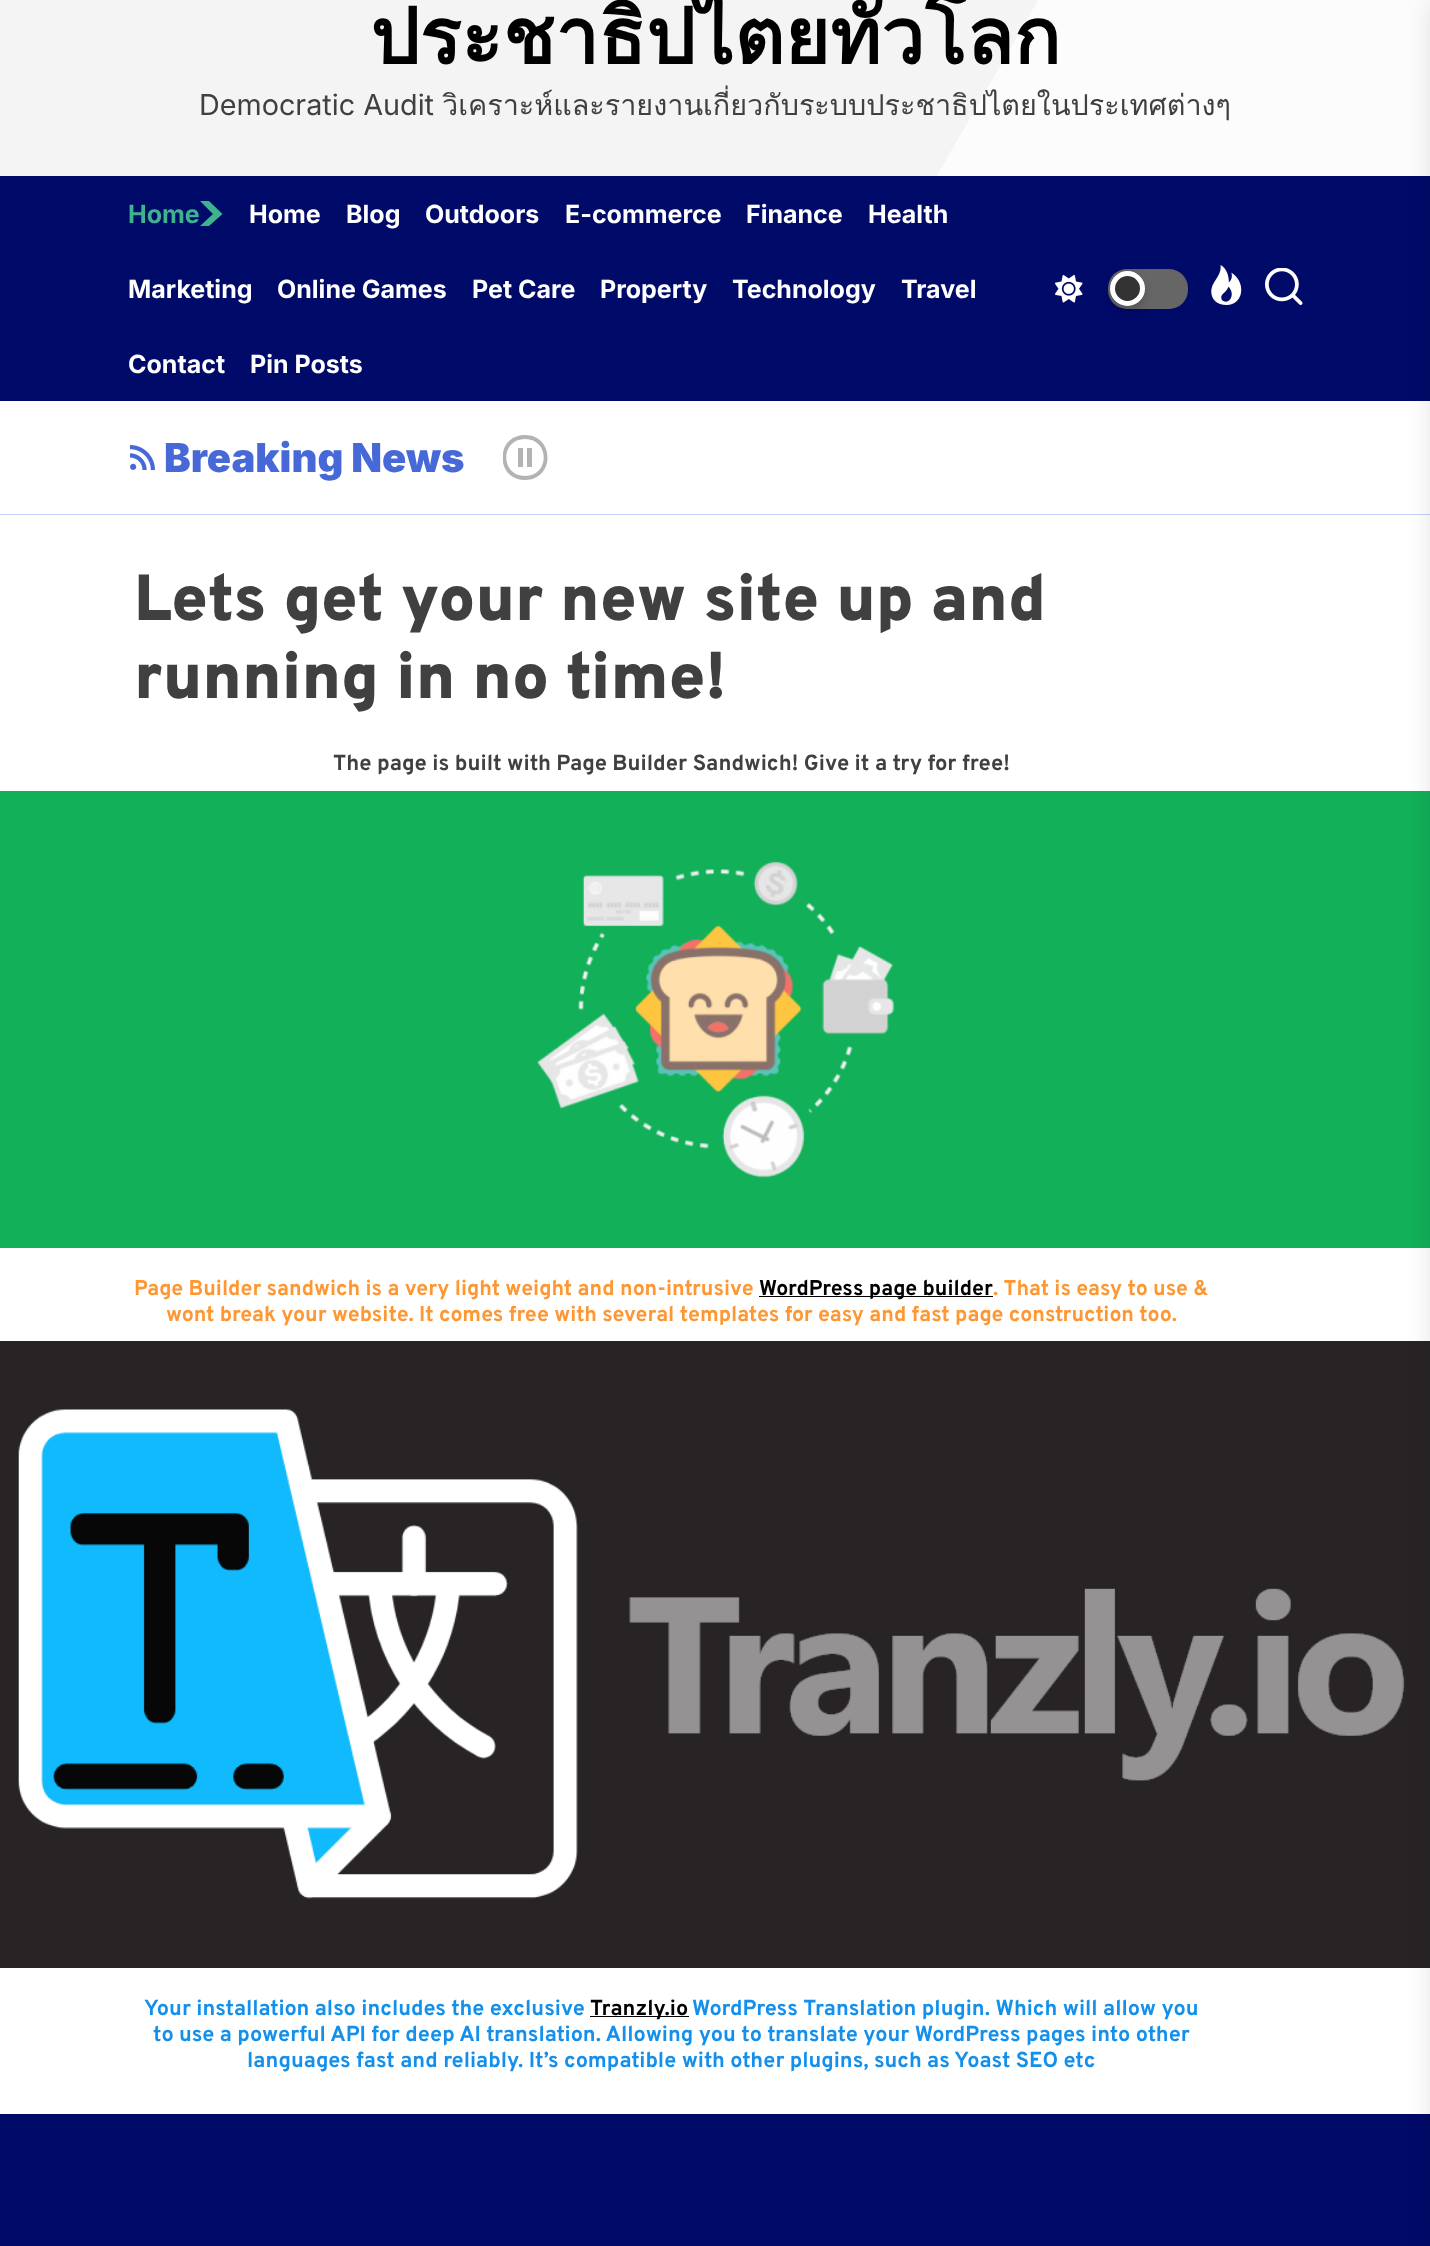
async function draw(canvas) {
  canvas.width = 1430;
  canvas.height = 2246;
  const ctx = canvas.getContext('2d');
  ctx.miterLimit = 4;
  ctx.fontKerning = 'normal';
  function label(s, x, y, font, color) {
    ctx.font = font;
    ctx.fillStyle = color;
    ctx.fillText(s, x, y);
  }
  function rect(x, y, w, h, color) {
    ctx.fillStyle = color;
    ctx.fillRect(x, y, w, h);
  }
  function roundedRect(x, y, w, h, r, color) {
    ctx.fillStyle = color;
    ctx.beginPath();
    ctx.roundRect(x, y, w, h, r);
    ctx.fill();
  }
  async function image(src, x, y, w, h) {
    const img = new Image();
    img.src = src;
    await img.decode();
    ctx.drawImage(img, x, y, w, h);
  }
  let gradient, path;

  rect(0, 0, 1430, 2246, '#fff');
  gradient = ctx.createLinearGradient(1383, 483, 47, -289);
  gradient.addColorStop(0.35, '#fcfcfc');
  gradient.addColorStop(0.35, '#f4f4f4');
  ctx.fillStyle = gradient;
  ctx.fillRect(0, 0, 1430, 176);
  label('ประชาธิปไตยทั่วโลก', 370, 64, 'bold 77.5px Loma', '#000');
  label('Democratic Audit', 199, 115, '28.75px Inter', '#404040');
  label('วิเคราะห์และรายงานเกี่ยวกับระบบประชาธิปไตยในประเทศต่างๆ', 442, 115, '28.75px Loma', '#404040');
  rect(0, 176, 1430, 225, '#000a68');
  label('Home', 128, 223, 'bold 25px Inter', '#3fb28f');
  path = new Path2D('M213 214L200 201H209L222.5 214L209 226H200Z');
  ctx.fill(path);
  label('Home', 249, 223, 'bold 25px Inter', '#fff');
  label('Blog', 346, 223, 'bold 25px Inter', '#fff');
  label('Outdoors', 425, 223, 'bold 25px Inter', '#fff');
  label('E-commerce', 565, 223, 'bold 25px Inter', '#fff');
  label('Finance', 746, 223, 'bold 25px Inter', '#fff');
  label('Health', 868, 223, 'bold 25px Inter', '#fff');
  label('Marketing', 128, 298, 'bold 25px Inter', '#fff');
  label('Online Games', 277, 298, 'bold 25px Inter', '#fff');
  label('Pet Care', 472, 298, 'bold 25px Inter', '#fff');
  label('Property', 600, 298, 'bold 25px Inter', '#fff');
  label('Technology', 732, 298, 'bold 25px Inter', '#fff');
  label('Travel', 901, 298, 'bold 25px Inter', '#fff');
  label('Contact', 128, 373, 'bold 25px Inter', '#fff');
  label('Pin Posts', 250, 373, 'bold 25px Inter', '#fff');
  await image('assets/img1.png', 1055, 275, 28, 28);
  roundedRect(1108, 269, 80, 40, 19, '#666');
  ctx.fillStyle = '#0000000d';
  path = new Path2D('M1126 270C1129 270 1172 269 1176 271C1181 274 1185 278 1187 284C1188 290 1187 296 1184 301C1192 290 1187 272 1173 269H1134C1124 269 1116 269 1111 278C1114 273 1119 270 1126 270Z');
  ctx.fill(path);
  ctx.fillStyle = '#00000029';
  ctx.filter = 'blur(5px)';
  ctx.beginPath();
  ctx.roundRect(1110, 276, 35, 35, 17.5);
  ctx.fill();
  ctx.filter = 'none';
  ctx.fillStyle = '#333';
  ctx.beginPath();
  ctx.arc(1127.5, 288.5, 15, 0, 2 * Math.PI);
  ctx.fill();
  ctx.strokeStyle = '#fff';
  ctx.lineWidth = 5;
  ctx.stroke();
  await image('assets/img2.png', 1211, 265, 31, 40);
  await image('assets/img3.png', 1265, 268, 38, 37);
  rect(0, 514, 1430, 1, '#c2cff8');
  rect(0, 791, 1430, 457, '#12b059');
  rect(0, 1341, 1430, 627, '#282425');
  await image('assets/img6.png', 18, 1409, 1387, 490);
  rect(0, 2114, 1430, 132, '#000a68');
  ctx.fillStyle = '#0000001a';
  ctx.filter = 'blur(12.5px)';
  ctx.beginPath();
  ctx.rect(1430, 0, 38, 2246);
  ctx.fill();
  ctx.filter = 'none';
  await image('assets/img4.png', 130, 445, 25, 25);
  label('Breaking News', 164, 472, '900 40px Inter', '#4769d8');
  ctx.save();
  ctx.beginPath();
  ctx.rect(503, 435, 45, 45);
  ctx.clip();
  ctx.fillStyle = '#b3b3b3';
  path = new Path2D('M525 439C550 439 550 476 525 476C500 476 500 439 525 439ZM525 435C495 435 495 480 525 480C555 480 555 435 525 435ZM523 467H518V448H523ZM532 448H527V467H532Z');
  ctx.fill(path);
  ctx.restore();
  label('Lets get your new site up and', 134, 620, '900 65px Overpass', '#404040');
  label('running in no time!', 134, 698, '900 65px Overpass', '#404040');
  label('The page is built with Page Builder Sandwich! Give it a try for free!', 333, 770, 'bold 21.95px Overpass', '#404040');
  await image('assets/img5.png', 537, 861, 357, 317);
  label('Page Builder sandwich is a very light weight and non-intrusive', 134, 1295, 'bold 21.35px Overpass', '#fe9631');
  rect(759, 1296, 234, 1, '#000');
  label('WordPress page builder', 759, 1295, 'bold 21.35px Overpass', '#000');
  label('. That is easy to use &', 993, 1295, 'bold 21.35px Overpass', '#fe9631');
  label('wont break your website. It comes free with several templates for easy and fast page construction too.', 166, 1321, 'bold 21.35px Overpass', '#fe9631');
  label('Your installation also includes the exclusive', 144, 2015, 'bold 21.65px Overpass', '#1490ec');
  rect(590, 2016, 99, 1, '#000');
  label('Tranzly.io', 590, 2015, 'bold 21.65px Overpass', '#000');
  label('WordPress Translation plugin. Which will allow you', 692, 2015, 'bold 21.65px Overpass', '#1490ec');
  label('to use a powerful API for deep AI translation. Allowing you to translate your WordPress pages into other', 153, 2041, 'bold 21.65px Overpass', '#1490ec');
  label('languages fast and reliably. It’s compatible with other plugins, such as Yoast SEO etc', 247, 2067, 'bold 21.65px Overpass', '#1490ec');
}

draw(document.querySelector('canvas'));
